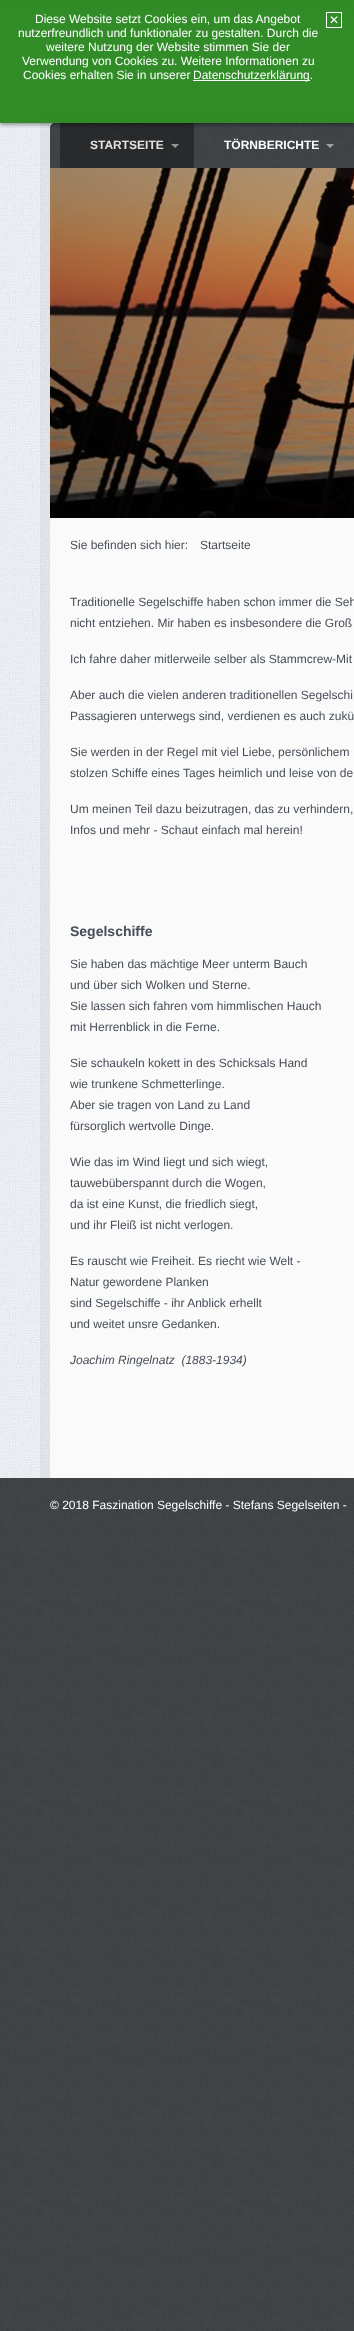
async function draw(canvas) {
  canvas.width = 354;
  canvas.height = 2331;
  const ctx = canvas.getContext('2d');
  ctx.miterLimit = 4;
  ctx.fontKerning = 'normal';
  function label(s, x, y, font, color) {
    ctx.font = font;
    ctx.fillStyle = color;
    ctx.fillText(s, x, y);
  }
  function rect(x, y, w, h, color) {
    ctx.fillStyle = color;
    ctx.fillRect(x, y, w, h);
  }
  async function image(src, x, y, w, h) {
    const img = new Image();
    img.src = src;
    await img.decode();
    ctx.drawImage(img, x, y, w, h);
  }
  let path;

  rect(0, 0, 354, 2331, '#3c3f43');
  await image('assets/img1.png', 0, 1478, 354, 853);
  await image('assets/img2.png', 0, 0, 354, 1478);
  rect(0, 0, 354, 10, '#0000000a');
  await image('assets/img3.png', 40, 113, 314, 1365);
  ctx.fillStyle = '#3c3f43';
  path = new Path2D('M55 123H354C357 123 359 125 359 128V168H50V128C50 125 52 123 55 123Z');
  ctx.fill(path);
  await image('assets/img4.png', 50, 123, 304, 45);
  rect(60, 123, 134, 45, '#242628');
  await image('assets/img5.png', 60, 123, 134, 45);
  ctx.save();
  ctx.beginPath();
  ctx.rect(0, 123, 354, 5);
  ctx.clip();
  ctx.fillStyle = '#00000080';
  ctx.filter = 'blur(2.5px)';
  ctx.beginPath();
  ctx.rect(0, 1, 354, 123);
  ctx.fill();
  ctx.filter = 'none';
  ctx.restore();
  rect(0, 0, 354, 123, '#1d8212e6');
  label('Diese Website setzt Cookies ein, um das Angebot', 35, 23, '12px Liberation Sans', '#fff');
  label('nutzerfreundlich und funktionaler zu gestalten. Durch die', 18, 37, '12px Liberation Sans', '#fff');
  label('weitere Nutzung der Website stimmen Sie der', 46, 51, '12px Liberation Sans', '#fff');
  label('Verwendung von Cookies zu. Weitere Informationen zu', 22, 65, '12px Liberation Sans', '#fff');
  label('Cookies erhalten Sie in unserer', 23, 79, '12px Liberation Sans', '#fff');
  rect(193, 80, 117, 1, '#fff');
  label('Datenschutzerklärung.', 193, 79, '12px Liberation Sans', '#fff');
  ctx.strokeStyle = '#fff';
  ctx.strokeRect(326.5, 12.5, 15, 15);
  label('✕', 329, 24, '12px DejaVu Sans', '#fff');
  await image('assets/img6.png', 171, 144, 8, 4);
  label('STARTSEITE', 90, 149, 'bold 12px Liberation Sans', '#e1e1e1');
  await image('assets/img7.png', 326, 144, 8, 4);
  label('TÖRNBERICHTE', 224, 149, 'bold 12px Liberation Sans', '#fff');
  await image('assets/img8.png', 50, 168, 304, 350);
  rect(50, 518, 304, 960, '#fafafa');
  label('Sie befinden sich hier:', 70, 549, '12px Liberation Sans', '#474e58');
  label('Startseite', 200, 549, '12px Liberation Sans', '#474e58');
  label('Traditionelle Segelschiffe haben schon immer die Seh', 70, 606, '12px Liberation Sans', '#474e58');
  label('nicht entziehen. Mir haben es insbesondere die Groß', 70, 627, '12px Liberation Sans', '#474e58');
  label('Ich fahre daher mitlerweile selber als Stammcrew-Mit', 70, 663, '12px Liberation Sans', '#474e58');
  label('Aber auch die vielen anderen traditionellen Segelschi', 70, 699, '12px Liberation Sans', '#474e58');
  label('Passagieren unterwegs sind, verdienen es auch zukü', 70, 720, '12px Liberation Sans', '#474e58');
  label('Sie werden in der Regel mit viel Liebe, persönlichem', 70, 756, '12px Liberation Sans', '#474e58');
  label('stolzen Schiffe eines Tages heimlich und leise von de', 70, 777, '12px Liberation Sans', '#474e58');
  label('Um meinen Teil dazu beizutragen, das zu verhindern,', 70, 813, '12px Liberation Sans', '#474e58');
  label('Infos und mehr - Schaut einfach mal herein!', 70, 834, '12px Liberation Sans', '#474e58');
  label('Segelschiffe', 70, 936, 'bold 14px Liberation Sans', '#474e58');
  label('Sie haben das mächtige Meer unterm Bauch', 70, 968, '12px Liberation Sans', '#474e58');
  label('und über sich Wolken und Sterne.', 70, 989, '12px Liberation Sans', '#474e58');
  label('Sie lassen sich fahren vom himmlischen Hauch', 70, 1010, '12px Liberation Sans', '#474e58');
  label('mit Herrenblick in die Ferne.', 70, 1031, '12px Liberation Sans', '#474e58');
  label('Sie schaukeln kokett in des Schicksals Hand', 70, 1067, '12px Liberation Sans', '#474e58');
  label('wie trunkene Schmetterlinge.', 70, 1088, '12px Liberation Sans', '#474e58');
  label('Aber sie tragen von Land zu Land', 70, 1109, '12px Liberation Sans', '#474e58');
  label('fürsorglich wertvolle Dinge.', 70, 1130, '12px Liberation Sans', '#474e58');
  label('Wie das im Wind liegt und sich wiegt,', 70, 1166, '12px Liberation Sans', '#474e58');
  label('tauwebüberspannt durch die Wogen,', 70, 1187, '12px Liberation Sans', '#474e58');
  label('da ist eine Kunst, die friedlich siegt,', 70, 1208, '12px Liberation Sans', '#474e58');
  label('und ihr Fleiß ist nicht verlogen.', 70, 1229, '12px Liberation Sans', '#474e58');
  label('Es rauscht wie Freiheit. Es riecht wie Welt -', 70, 1265, '12px Liberation Sans', '#474e58');
  label('Natur gewordene Planken', 70, 1286, '12px Liberation Sans', '#474e58');
  label('sind Segelschiffe - ihr Anblick erhellt', 70, 1307, '12px Liberation Sans', '#474e58');
  label('und weitet unsre Gedanken.', 70, 1328, '12px Liberation Sans', '#474e58');
  label('Joachim Ringelnatz  (1883-1934)', 70, 1364, 'italic 12px Liberation Sans', '#474e58');
  label('© 2018 Faszination Segelschiffe - Stefans Segelseiten -', 50, 1509, '12px Liberation Sans', '#fff');
}

draw(document.querySelector('canvas'));
